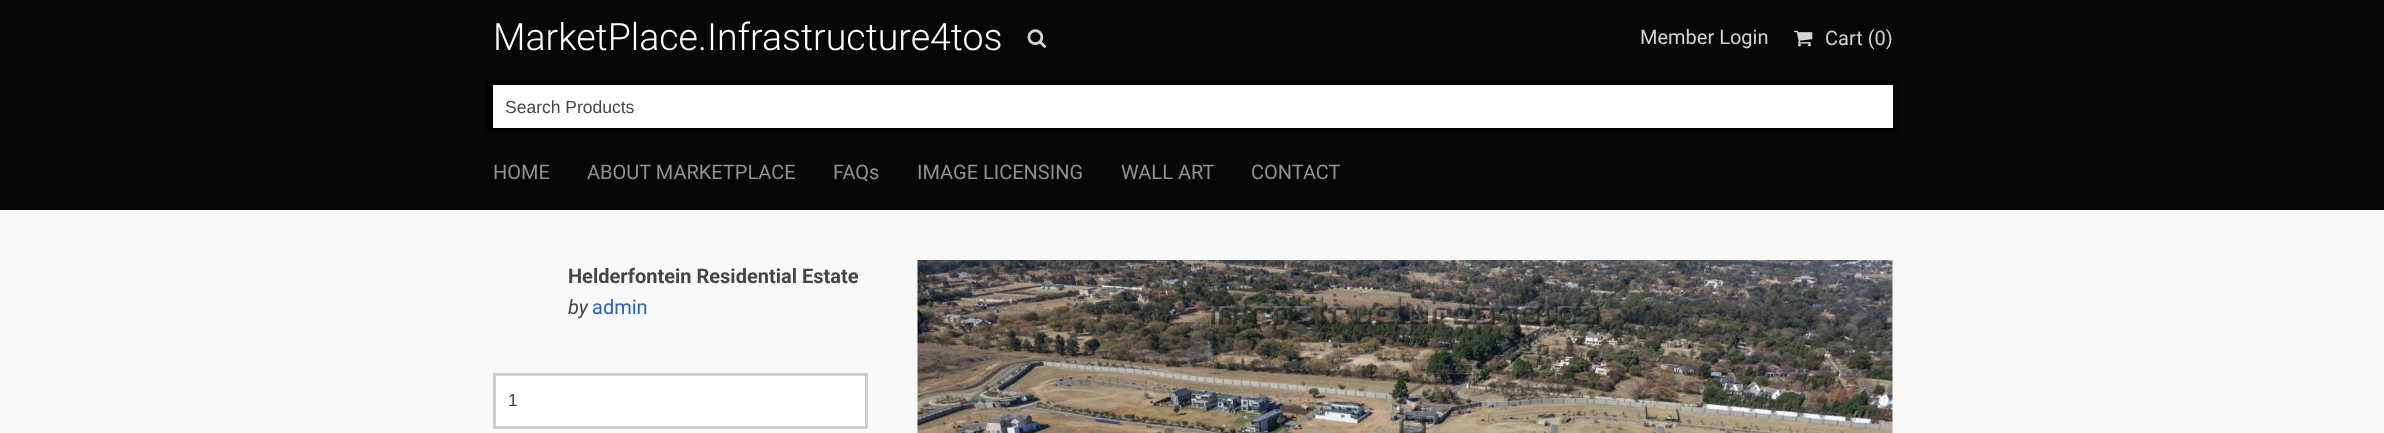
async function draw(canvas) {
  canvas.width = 2384;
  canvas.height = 433;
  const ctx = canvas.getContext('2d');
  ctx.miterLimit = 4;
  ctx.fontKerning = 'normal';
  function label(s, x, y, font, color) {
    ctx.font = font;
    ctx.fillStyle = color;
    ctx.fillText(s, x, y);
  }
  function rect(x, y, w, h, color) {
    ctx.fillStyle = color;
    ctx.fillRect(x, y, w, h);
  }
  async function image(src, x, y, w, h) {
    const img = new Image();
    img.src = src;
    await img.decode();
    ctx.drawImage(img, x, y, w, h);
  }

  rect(0, 0, 2384, 433, '#f9f9f9');
  rect(0, 0, 2384, 210, '#070708');
  label('MarketPlace.Infrastructure4tos', 493, 50, '300 37.5px Roboto', '#fff');
  await image('assets/img1.png', 1027, 29, 20, 19);
  label('Member Login', 1640, 44, '20px Roboto', '#d3d3d3');
  await image('assets/img2.png', 1793, 30, 20, 17);
  label('Cart (0)', 1825, 45, '20px Roboto', '#d3d3d3');
  ctx.strokeStyle = '#040404';
  ctx.lineWidth = 6;
  ctx.strokeRect(489, 82, 1407, 49);
  rect(493, 85, 1400, 43, '#fff');
  label('Search Products', 505, 113, '17.5px Liberation Sans', '#454545');
  label('HOME', 493, 179, '20px Roboto', '#909090');
  label('ABOUT MARKETPLACE', 587, 179, '20px Roboto', '#909090');
  label('FAQs', 833, 179, '20px Roboto', '#909090');
  label('IMAGE LICENSING', 917, 179, '20px Roboto', '#909090');
  label('WALL ART', 1121, 179, '20px Roboto', '#909090');
  label('CONTACT', 1251, 179, '20px Roboto', '#909090');
  label('Helderfontein Residential Estate', 568, 283, 'bold 20px Roboto', '#454545');
  label('by', 568, 314, 'italic 20px Roboto', '#454545');
  label('admin', 592, 314, '20px Roboto', '#2860c5');
  ctx.fillStyle = '#fff';
  ctx.beginPath();
  ctx.rect(494.5, 374.5, 372, 53);
  ctx.fill();
  ctx.strokeStyle = '#cfcfcf';
  ctx.lineWidth = 3;
  ctx.stroke();
  label('1', 508, 406, '17.5px Liberation Sans', '#454545');
  await image('assets/img3.png', 917, 260, 976, 173);
}

draw(document.querySelector('canvas'));
